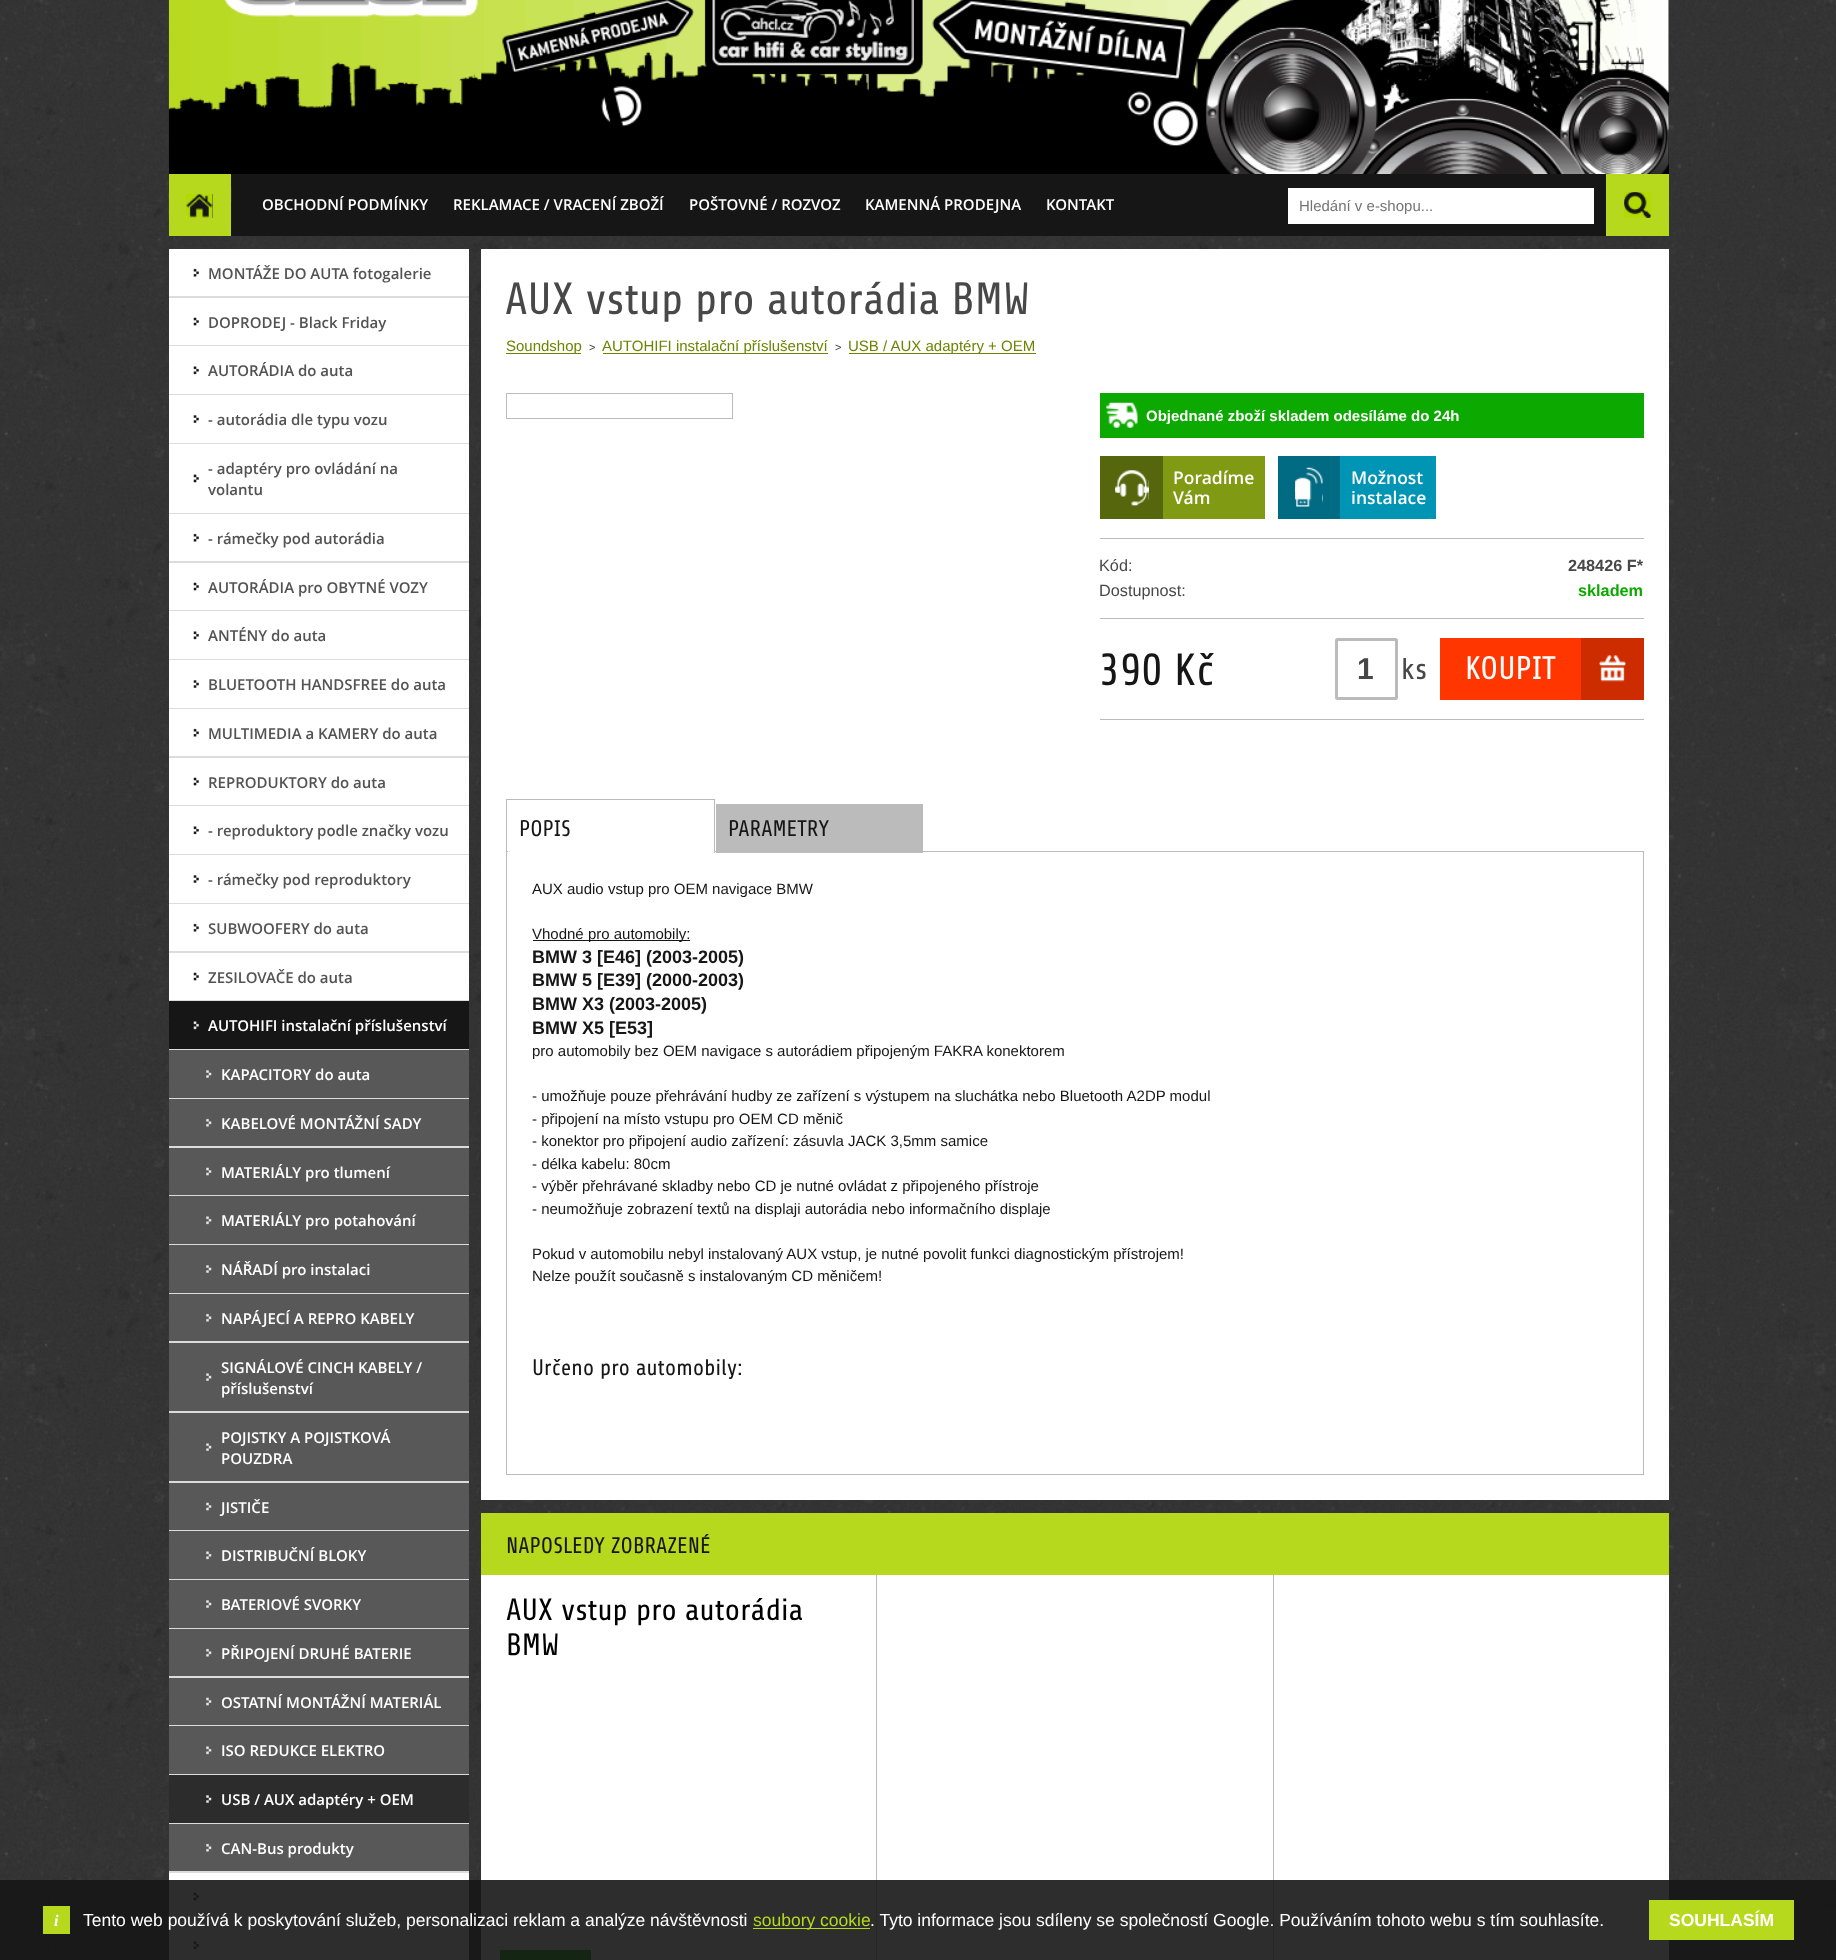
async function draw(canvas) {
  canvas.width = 1836;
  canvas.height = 1960;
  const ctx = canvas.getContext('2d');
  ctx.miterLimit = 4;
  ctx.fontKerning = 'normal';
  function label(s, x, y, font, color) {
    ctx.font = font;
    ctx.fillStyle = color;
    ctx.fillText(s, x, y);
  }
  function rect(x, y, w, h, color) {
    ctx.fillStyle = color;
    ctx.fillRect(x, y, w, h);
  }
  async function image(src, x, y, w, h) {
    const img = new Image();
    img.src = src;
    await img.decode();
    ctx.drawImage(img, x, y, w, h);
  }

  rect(0, 0, 1836, 1960, '#fff');
  await image('assets/img1.png', 0, 0, 1836, 1960);
  rect(1668, 0, 1, 174, '#000');
  await image('assets/img2.png', 168, 0, 1501, 174);
  await image('assets/img3.png', 224, 0, 254, 17);
  rect(231, 174, 1375, 62, '#161616');
  rect(186, 217, 27, 1, '#b7d91d');
  await image('assets/img4.png', 168, 187, 64, 38);
  rect(186, 174, 27, 20, '#b7d91d');
  rect(213, 174, 18, 44, '#b7d91d');
  rect(186, 218, 45, 18, '#b7d91d');
  rect(169, 174, 17, 62, '#b7d91d');
  label('OBCHODNÍ PODMÍNKY', 262, 210, '600 15px Open Sans', '#fff');
  label('REKLAMACE / VRACENÍ ZBOŽÍ', 453, 210, '600 15px Open Sans', '#fff');
  label('POŠTOVNÉ / ROZVOZ', 689, 210, '600 15px Open Sans', '#fff');
  label('KAMENNÁ PRODEJNA', 865, 210, '600 15px Open Sans', '#fff');
  label('KONTAKT', 1046, 210, '600 15px Open Sans', '#fff');
  rect(1288, 188, 306, 36, '#fff');
  label('Hledání v e-shopu...', 1299, 211, '15px Liberation Sans', '#757575');
  await image('assets/img5.png', 1624, 192, 27, 26);
  ctx.strokeStyle = '#b7d91d';
  ctx.lineWidth = 18;
  ctx.strokeRect(1615, 183, 45, 44);
  rect(169, 296, 300, 1625, '#dcdcdc');
  rect(169, 249, 300, 47, '#fff');
  await image('assets/img6.png', 193, 268, 6, 9);
  label('MONTÁŽE DO AUTA fotogalerie', 208, 279, '600 15px Open Sans', '#535353');
  rect(169, 298, 300, 47, '#fff');
  await image('assets/img7.png', 193, 317, 6, 9);
  label('DOPRODEJ - Black Friday', 208, 328, '600 15px Open Sans', '#535353');
  rect(169, 346, 300, 48, '#fff');
  await image('assets/img8.png', 193, 366, 6, 9);
  label('AUTORÁDIA do auta', 208, 376, '600 15px Open Sans', '#535353');
  rect(169, 395, 300, 48, '#fff');
  await image('assets/img9.png', 193, 415, 6, 8);
  label('- autorádia dle typu vozu', 208, 425, '600 15px Open Sans', '#535353');
  rect(169, 444, 300, 69, '#fff');
  await image('assets/img10.png', 193, 474, 6, 9);
  label('- adaptéry pro ovládání na', 208, 474, '600 15px Open Sans', '#535353');
  label('volantu', 208, 495, '600 15px Open Sans', '#535353');
  rect(169, 514, 300, 47, '#fff');
  await image('assets/img6.png', 193, 533, 6, 9);
  label('- rámečky pod autorádia', 208, 544, '600 15px Open Sans', '#535353');
  rect(169, 563, 300, 47, '#fff');
  await image('assets/img7.png', 193, 582, 6, 9);
  label('AUTORÁDIA pro OBYTNÉ VOZY', 208, 593, '600 15px Open Sans', '#535353');
  rect(169, 611, 300, 48, '#fff');
  await image('assets/img8.png', 193, 631, 6, 9);
  label('ANTÉNY do auta', 208, 641, '600 15px Open Sans', '#535353');
  rect(169, 660, 300, 48, '#fff');
  await image('assets/img9.png', 193, 680, 6, 8);
  label('BLUETOOTH HANDSFREE do auta', 208, 690, '600 15px Open Sans', '#535353');
  rect(169, 709, 300, 47, '#fff');
  await image('assets/img6.png', 193, 728, 6, 9);
  label('MULTIMEDIA a KAMERY do auta', 208, 739, '600 15px Open Sans', '#535353');
  rect(169, 758, 300, 47, '#fff');
  await image('assets/img7.png', 193, 777, 6, 9);
  label('REPRODUKTORY do auta', 208, 788, '600 15px Open Sans', '#535353');
  rect(169, 806, 300, 48, '#fff');
  await image('assets/img8.png', 193, 826, 6, 9);
  label('- reproduktory podle značky vozu', 208, 836, '600 15px Open Sans', '#535353');
  rect(169, 855, 300, 48, '#fff');
  await image('assets/img9.png', 193, 875, 6, 8);
  label('- rámečky pod reproduktory', 208, 885, '600 15px Open Sans', '#535353');
  rect(169, 904, 300, 47, '#fff');
  await image('assets/img6.png', 193, 923, 6, 9);
  label('SUBWOOFERY do auta', 208, 934, '600 15px Open Sans', '#535353');
  rect(169, 953, 300, 47, '#fff');
  await image('assets/img7.png', 193, 972, 6, 9);
  label('ZESILOVAČE do auta', 208, 983, '600 15px Open Sans', '#535353');
  rect(169, 1001, 300, 48, '#161616');
  await image('assets/img11.png', 193, 1021, 6, 9);
  label('AUTOHIFI instalační příslušenství', 208, 1031, '600 15px Open Sans', '#fff');
  rect(169, 1050, 300, 48, '#585858');
  await image('assets/img12.png', 206, 1070, 6, 8);
  label('KAPACITORY do auta', 221, 1080, '600 15px Open Sans', '#fff');
  rect(169, 1099, 300, 47, '#585858');
  await image('assets/img13.png', 206, 1118, 6, 9);
  label('KABELOVÉ MONTÁŽNÍ SADY', 221, 1129, '600 15px Open Sans', '#fff');
  rect(169, 1148, 300, 47, '#585858');
  await image('assets/img14.png', 206, 1167, 6, 9);
  label('MATERIÁLY pro tlumení', 221, 1178, '600 15px Open Sans', '#fff');
  rect(169, 1196, 300, 48, '#585858');
  await image('assets/img15.png', 206, 1216, 6, 9);
  label('MATERIÁLY pro potahování', 221, 1226, '600 15px Open Sans', '#fff');
  rect(169, 1245, 300, 48, '#585858');
  await image('assets/img12.png', 206, 1265, 6, 8);
  label('NÁŘADÍ pro instalaci', 221, 1275, '600 15px Open Sans', '#fff');
  rect(169, 1294, 300, 47, '#585858');
  await image('assets/img13.png', 206, 1313, 6, 9);
  label('NAPÁJECÍ A REPRO KABELY', 221, 1324, '600 15px Open Sans', '#fff');
  rect(169, 1343, 300, 68, '#585858');
  label('SIGNÁLOVÉ CINCH KABELY /', 221, 1373, '600 15px Open Sans', '#fff');
  await image('assets/img16.png', 206, 1373, 6, 8);
  label('příslušenství', 221, 1394, '600 15px Open Sans', '#fff');
  rect(169, 1413, 300, 68, '#585858');
  label('POJISTKY A POJISTKOVÁ', 221, 1443, '600 15px Open Sans', '#fff');
  await image('assets/img16.png', 206, 1443, 6, 8);
  label('POUZDRA', 221, 1464, '600 15px Open Sans', '#fff');
  rect(169, 1483, 300, 47, '#585858');
  await image('assets/img14.png', 206, 1502, 6, 9);
  label('JISTIČE', 221, 1513, '600 15px Open Sans', '#fff');
  rect(169, 1531, 300, 48, '#585858');
  await image('assets/img15.png', 206, 1551, 6, 9);
  label('DISTRIBUČNÍ BLOKY', 221, 1561, '600 15px Open Sans', '#fff');
  rect(169, 1580, 300, 48, '#585858');
  await image('assets/img12.png', 206, 1600, 6, 8);
  label('BATERIOVÉ SVORKY', 221, 1610, '600 15px Open Sans', '#fff');
  rect(169, 1629, 300, 47, '#585858');
  await image('assets/img13.png', 206, 1648, 6, 9);
  label('PŘIPOJENÍ DRUHÉ BATERIE', 221, 1659, '600 15px Open Sans', '#fff');
  rect(169, 1678, 300, 47, '#585858');
  await image('assets/img14.png', 206, 1697, 6, 9);
  label('OSTATNÍ MONTÁŽNÍ MATERIÁL', 221, 1708, '600 15px Open Sans', '#fff');
  rect(169, 1726, 300, 48, '#585858');
  await image('assets/img15.png', 206, 1746, 6, 9);
  label('ISO REDUKCE ELEKTRO', 221, 1756, '600 15px Open Sans', '#fff');
  rect(169, 1775, 300, 48, '#2c2c2c');
  await image('assets/img17.png', 206, 1795, 6, 8);
  label('USB / AUX adaptéry + OEM', 221, 1805, '600 15px Open Sans', '#fff');
  rect(169, 1824, 300, 47, '#585858');
  await image('assets/img13.png', 206, 1843, 6, 9);
  label('CAN-Bus produkty', 221, 1854, '600 15px Open Sans', '#fff');
  rect(169, 1873, 300, 47, '#fff');
  await image('assets/img7.png', 193, 1892, 6, 9);
  rect(169, 1921, 300, 39, '#fff');
  await image('assets/img8.png', 193, 1941, 6, 9);
  rect(481, 249, 1188, 1251, '#fff');
  label('AUX vstup pro autorádia BMW', 505, 314, '45px Share', '#484848');
  rect(506, 353, 75, 1, '#6c8400');
  label('Soundshop', 506, 351, '15px Liberation Sans', '#6c8400');
  label('>', 589, 351, '11px Liberation Sans', '#484848');
  rect(603, 353, 225, 1, '#6c8400');
  label('AUTOHIFI instalační příslušenství', 602, 351, '15px Liberation Sans', '#6c8400');
  label('>', 835, 351, '11px Liberation Sans', '#484848');
  rect(849, 353, 187, 1, '#6c8400');
  label('USB / AUX adaptéry + OEM', 848, 351, '15px Liberation Sans', '#6c8400');
  ctx.strokeStyle = '#bbb';
  ctx.lineWidth = 1;
  ctx.strokeRect(506.5, 393.5, 226, 25);
  rect(1100, 393, 544, 45, '#0caa00');
  await image('assets/img18.png', 1106, 402, 32, 26);
  label('Objednané zboží skladem odesíláme do 24h', 1146, 421, 'bold 15px Liberation Sans', '#fff');
  rect(1100, 538, 544, 1, '#bbb');
  rect(1163, 456, 102, 63, '#819a14');
  rect(1100, 456, 63, 63, '#56660d');
  await image('assets/img19.png', 1115, 470, 34, 36);
  label('Poradíme', 1173, 484, '600 17.5px Open Sans', '#fff');
  label('Vám', 1173, 504, '600 17.5px Open Sans', '#fff');
  rect(1340, 456, 96, 63, '#0094b5');
  rect(1278, 456, 62, 63, '#006b82');
  await image('assets/img20.png', 1295, 467, 28, 40);
  label('Možnost', 1351, 484, '600 17.5px Open Sans', '#fff');
  label('instalace', 1351, 504, '600 17.5px Open Sans', '#fff');
  label('Kód:', 1099, 571, '16.25px Liberation Sans', '#484848');
  label('248426 F*', 1568, 571, 'bold 16.25px Liberation Sans', '#484848');
  label('Dostupnost:', 1099, 596, '16.25px Liberation Sans', '#484848');
  label('skladem', 1578, 596, 'bold 16.25px Liberation Sans', '#0caa00');
  rect(1100, 618, 544, 1, '#bbb');
  label('390 Kč', 1099, 685, '45px Share', '#161616');
  ctx.beginPath();
  ctx.roundRect(1336.5, 639.5, 60, 59, 1);
  ctx.lineWidth = 3;
  ctx.stroke();
  label('1', 1357, 679, 'bold 30px Liberation Sans', '#484848');
  label('ks', 1401, 679, '30px Share', '#484848');
  rect(1440, 638, 141, 62, '#ff3600');
  label('KOUPIT', 1465, 679, '32.5px Share', '#fff');
  rect(1581, 638, 63, 62, '#cc2c00');
  await image('assets/img21.png', 1599, 655, 27, 27);
  rect(1100, 719, 544, 1, '#bbb');
  ctx.lineWidth = 1;
  ctx.strokeRect(506.5, 851.5, 1137, 623);
  rect(508, 851, 206, 1, '#fff');
  rect(506, 799, 209, 1, '#bbb');
  rect(714, 799, 1, 54, '#bbb');
  rect(506, 799, 1, 54, '#bbb');
  label('POPIS', 519, 836, '22.5px Share', '#161616');
  rect(716, 804, 207, 49, '#bbb');
  label('PARAMETRY', 728, 836, '22.5px Share', '#161616');
  label('AUX audio vstup pro OEM navigace BMW', 532, 894, '15px Liberation Sans', '#161616');
  rect(533, 940, 157, 1, '#161616');
  label('Vhodné pro automobily:', 532, 939, '15px Liberation Sans', '#161616');
  label('BMW 3 [E46] (2003-2005)', 532, 963, 'bold 18px Liberation Sans', '#161616');
  label('BMW 5 [E39] (2000-2003)', 532, 986, 'bold 18px Liberation Sans', '#161616');
  label('BMW X3 (2003-2005)', 532, 1010, 'bold 18px Liberation Sans', '#161616');
  label('BMW X5 [E53]', 532, 1034, 'bold 18px Liberation Sans', '#161616');
  label('pro automobily bez OEM navigace s autorádiem připojeným FAKRA konektorem', 532, 1056, '15px Liberation Sans', '#161616');
  label('- umožňuje pouze přehrávání hudby ze zařízení s výstupem na sluchátka nebo Bluetooth A2DP modul', 532, 1101, '15px Liberation Sans', '#161616');
  label('- připojení na místo vstupu pro OEM CD měnič', 532, 1124, '15px Liberation Sans', '#161616');
  label('- konektor pro připojení audio zařízení: zásuvla JACK 3,5mm samice', 532, 1146, '15px Liberation Sans', '#161616');
  label('- délka kabelu: 80cm', 532, 1169, '15px Liberation Sans', '#161616');
  label('- výběr přehrávané skladby nebo CD je nutné ovládat z připojeného přístroje', 532, 1191, '15px Liberation Sans', '#161616');
  label('- neumožňuje zobrazení textů na displaji autorádia nebo informačního displaje', 532, 1214, '15px Liberation Sans', '#161616');
  label('Pokud v automobilu nebyl instalovaný AUX vstup, je nutné povolit funkci diagnostickým přístrojem!', 532, 1259, '15px Liberation Sans', '#161616');
  label('Nelze použít současně s instalovaným CD měničem!', 532, 1281, '15px Liberation Sans', '#161616');
  label('Určeno pro automobily:', 532, 1375, '22.5px Share', '#161616');
  rect(481, 1575, 1188, 385, '#fff');
  rect(481, 1513, 1188, 62, '#b7d91d');
  label('NAPOSLEDY ZOBRAZENÉ', 506, 1553, '22.5px Share', '#161616');
  label('AUX vstup pro autorádia', 506, 1620, '30.75px Share', '#000');
  label('BMW', 506, 1655, '30.75px Share', '#000');
  rect(500, 1950, 91, 10, '#0caa00');
  rect(876, 1575, 1, 385, '#bbb');
  rect(1273, 1575, 1, 385, '#bbb');
  rect(0, 1880, 1836, 80, '#161616e6');
  rect(43, 1906, 27, 28, '#b7d91d');
  label('i', 54, 1926, 'italic bold 16.25px Liberation Serif', '#fff');
  label('Tento web používá k poskytování služeb, personalizaci reklam a analýze návštěvnosti', 83, 1926, '17.5px Liberation Sans', '#fff');
  rect(753, 1928, 117, 1, '#b7d91d');
  label('soubory cookie', 753, 1926, '17.5px Liberation Sans', '#b7d91d');
  label('. Tyto informace jsou sdíleny se společností Google. Používáním tohoto webu s tím souhlasíte.', 870, 1926, '17.5px Liberation Sans', '#fff');
  rect(1649, 1900, 145, 40, '#b7d91d');
  label('SOUHLASÍM', 1669, 1926, 'bold 17.5px Liberation Sans', '#fff');
}

draw(document.querySelector('canvas'));
